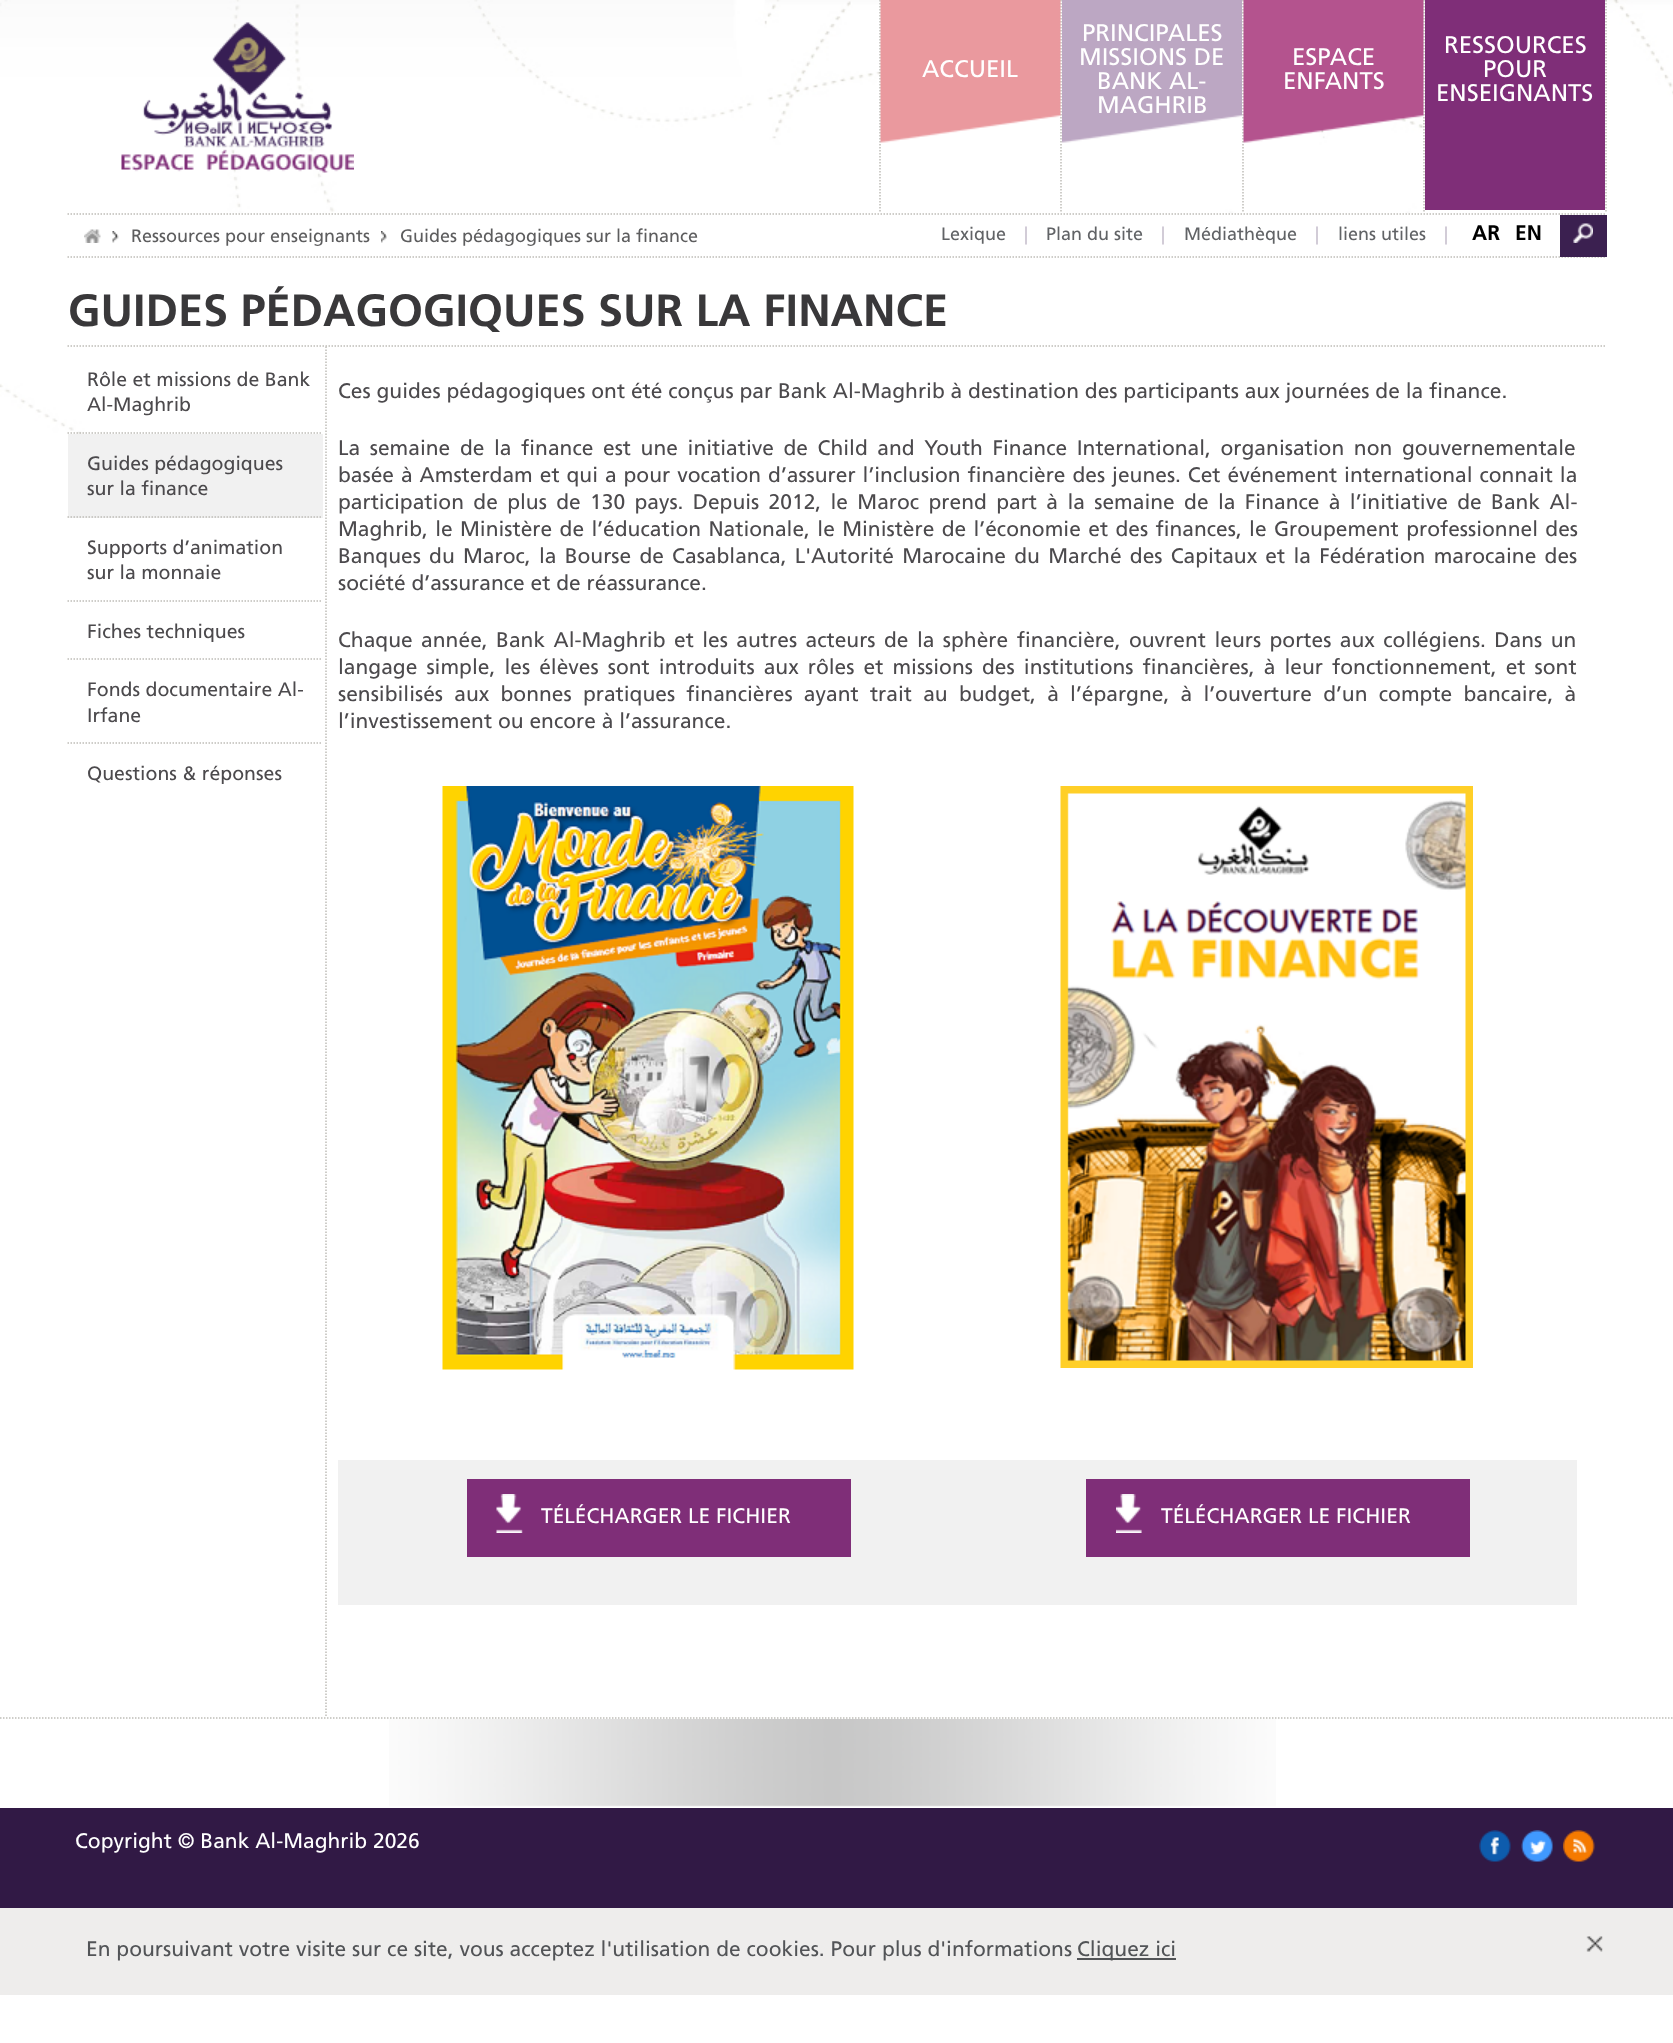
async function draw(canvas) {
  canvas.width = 1673;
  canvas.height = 2043;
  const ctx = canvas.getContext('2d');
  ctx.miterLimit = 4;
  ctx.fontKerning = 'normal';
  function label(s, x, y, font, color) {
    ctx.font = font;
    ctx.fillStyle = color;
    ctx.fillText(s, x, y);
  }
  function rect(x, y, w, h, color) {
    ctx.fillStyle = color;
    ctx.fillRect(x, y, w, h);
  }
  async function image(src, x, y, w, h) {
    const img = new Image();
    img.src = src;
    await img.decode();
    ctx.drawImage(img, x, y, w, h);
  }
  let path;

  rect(0, 0, 1673, 2043, '#fff');
  await image('assets/img1.png', 0, 0, 1673, 473);
  await image('assets/img2.png', 121, 22, 233, 151);
  path = new Path2D('M880 0V213');
  ctx.strokeStyle = '#bfbdb8';
  ctx.lineWidth = 1.5;
  ctx.setLineDash([1.5, 1.5]);
  ctx.stroke(path);
  path = new Path2D('M1061 0V213');
  ctx.stroke(path);
  await image('assets/img3.png', 880, 0, 181, 143);
  label('ACCUEIL', 922, 77, '24px Frutiger', '#fff');
  path = new Path2D('M1243 0V213');
  ctx.stroke(path);
  await image('assets/img4.png', 1062, 0, 180, 143);
  label('PRINCIPALES', 1082, 41, '24px Frutiger', '#fff');
  label('MISSIONS DE', 1079, 65, '24px Frutiger', '#fff');
  label('BANK AL-', 1097, 89, '24px Frutiger', '#fff');
  label('MAGHRIB', 1097, 113, '24px Frutiger', '#fff');
  path = new Path2D('M1424 0V213');
  ctx.stroke(path);
  await image('assets/img5.png', 1243, 0, 181, 143);
  label('ESPACE', 1292, 65, '24px Frutiger', '#fff');
  label('ENFANTS', 1283, 89, '24px Frutiger', '#fff');
  path = new Path2D('M1606 0V213');
  ctx.stroke(path);
  rect(1425, 0, 180, 210, '#7f2e78');
  label('RESSOURCES', 1444, 53, '24px Frutiger', '#fff');
  label('POUR', 1483, 77, '24px Frutiger', '#fff');
  label('ENSEIGNANTS', 1436, 101, '24px Frutiger', '#fff');
  path = new Path2D('M67.5 214H1606.5');
  ctx.stroke(path);
  path = new Path2D('M67.5 257H1606.5');
  ctx.stroke(path);
  await image('assets/img6.png', 84, 229, 17, 14);
  await image('assets/img7.png', 112, 231, 7, 12);
  label('Ressources pour enseignants', 131, 242, '18px Frutiger', '#5d5d5e');
  await image('assets/img8.png', 381, 231, 6, 12);
  label('Guides pédagogiques sur la finance', 400, 242, '18px Frutiger', '#5d5d5e');
  label('Lexique', 941, 240, '18px Frutiger', '#616366');
  label('|', 1024, 240, '18px Frutiger', '#c9c1cf');
  label('Plan du site', 1046, 240, '18px Frutiger', '#616366');
  label('|', 1161, 240, '18px Frutiger', '#c9c1cf');
  label('Médiathèque', 1184, 240, '18px Frutiger', '#616366');
  label('|', 1315, 240, '18px Frutiger', '#c9c1cf');
  label('liens utiles', 1338, 240, '18px Frutiger', '#616366');
  label('|', 1444, 240, '18px Frutiger', '#c9c1cf');
  label('AR', 1472, 240, 'bold 21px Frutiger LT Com', '#000');
  label('EN', 1515, 240, 'bold 21px Frutiger LT Com', '#000');
  rect(1560, 215, 47, 42, '#3b2050');
  await image('assets/img9.png', 1573, 223, 20, 20);
  label('GUIDES PÉDAGOGIQUES SUR LA FINANCE', 68, 326, 'bold 45px Frutiger LT Com', '#39383a');
  path = new Path2D('M67.5 346H1606.5');
  ctx.stroke(path);
  path = new Path2D('M67.5 433H322.5');
  ctx.stroke(path);
  label('Rôle et missions de Bank', 87, 386, '19.5px Frutiger', '#4c4a4d');
  label('Al-Maghrib', 87, 411, '19.5px Frutiger', '#4c4a4d');
  rect(68, 434, 255, 84, '#f1f1f1');
  path = new Path2D('M67.5 517H322.5');
  ctx.stroke(path);
  label('Guides pédagogiques', 87, 470, '19.5px Frutiger', '#4c4a4d');
  label('sur la finance', 87, 495, '19.5px Frutiger', '#4c4a4d');
  path = new Path2D('M67.5 601H322.5');
  ctx.stroke(path);
  label('Supports d’animation', 87, 554, '19.5px Frutiger', '#4c4a4d');
  label('sur la monnaie', 87, 579, '19.5px Frutiger', '#4c4a4d');
  path = new Path2D('M67.5 659H322.5');
  ctx.stroke(path);
  label('Fiches techniques', 87, 638, '19.5px Frutiger', '#4c4a4d');
  path = new Path2D('M67.5 743H322.5');
  ctx.stroke(path);
  label('Fonds documentaire Al-', 87, 696, '19.5px Frutiger', '#4c4a4d');
  label('Irfane', 87, 722, '19.5px Frutiger', '#4c4a4d');
  label('Questions & réponses', 87, 780, '19.5px Frutiger', '#4c4a4d');
  path = new Path2D('M326 346.5V1717.5');
  ctx.stroke(path);
  label('Ces guides pédagogiques ont été conçus par Bank Al-Maghrib à destination des participants aux journées de la finance.', 338, 398, '21px Frutiger', '#4c4a4d');
  ctx.wordSpacing = '3.75px';
  label('La semaine de la finance est une initiative de Child and Youth Finance International, organisation non gouvernementale', 338, 455, '21px Frutiger', '#4c4a4d');
  ctx.wordSpacing = '1.1px';
  label('basée à Amsterdam et qui a pour vocation d’assurer l’inclusion financière des jeunes. Cet événement international connait la', 338, 482, '21px Frutiger', '#4c4a4d');
  ctx.wordSpacing = '3.5px';
  label('participation de plus de 130 pays. Depuis 2012, le Maroc prend part à la semaine de la Finance à l’initiative de Bank Al-', 338, 509, '21px Frutiger', '#4c4a4d');
  ctx.wordSpacing = '1.5px';
  label('Maghrib, le Ministère de l’éducation Nationale, le Ministère de l’économie et des finances, le Groupement professionnel des', 338, 536, '21px Frutiger', '#4c4a4d');
  ctx.wordSpacing = '2.4px';
  label('Banques du Maroc, la Bourse de Casablanca, L\'Autorité Marocaine du Marché des Capitaux et la Fédération marocaine des', 338, 563, '21px Frutiger', '#4c4a4d');
  ctx.wordSpacing = '0px';
  label('société d’assurance et de réassurance.', 338, 590, '21px Frutiger', '#4c4a4d');
  ctx.wordSpacing = '2.6px';
  label('Chaque année, Bank Al-Maghrib et les autres acteurs de la sphère financière, ouvrent leurs portes aux collégiens. Dans un', 338, 647, '21px Frutiger', '#4c4a4d');
  ctx.wordSpacing = '3.25px';
  label('langage simple, les élèves sont introduits aux rôles et missions des institutions financières, à leur fonctionnement, et sont', 338, 674, '21px Frutiger', '#4c4a4d');
  ctx.wordSpacing = '5.4px';
  label('sensibilisés aux bonnes pratiques financières ayant trait au budget, à l’épargne, à l’ouverture d’un compte bancaire, à', 338, 701, '21px Frutiger', '#4c4a4d');
  ctx.wordSpacing = '0px';
  label('l’investissement ou encore à l’assurance.', 338, 728, '21px Frutiger', '#4c4a4d');
  await image('assets/img10.png', 442, 786, 412, 584);
  await image('assets/img11.png', 1060, 786, 413, 582);
  rect(338, 1460, 1239, 145, '#f1f1f1');
  rect(467, 1479, 384, 78, '#7f2e78');
  await image('assets/img12.png', 496, 1494, 27, 39);
  label('TÉLÉCHARGER LE FICHIER', 541, 1523, '21px Frutiger', '#fff');
  rect(1086, 1479, 384, 78, '#7f2e78');
  await image('assets/img13.png', 1116, 1494, 26, 39);
  label('TÉLÉCHARGER LE FICHIER', 1161, 1523, '21px Frutiger', '#fff');
  await image('assets/img14.png', 389, 1719, 887, 88);
  path = new Path2D('M0 1718H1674');
  ctx.stroke(path);
  rect(0, 1808, 1673, 100, '#311945');
  label('Copyright © Bank Al-Maghrib 2026', 75, 1848, '21px Frutiger', '#fff');
  await image('assets/img15.png', 1479, 1830, 32, 32);
  await image('assets/img16.png', 1521, 1830, 32, 32);
  await image('assets/img17.png', 1563, 1830, 32, 32);
  rect(0, 1908, 1673, 87, '#eeedec');
  label('En poursuivant votre visite sur ce site, vous acceptez l\'utilisation de cookies. Pour plus d\'informations', 86, 1956, '21px Frutiger', '#525457');
  rect(1077, 1958, 99, 2, '#525457');
  label('Cliquez ici', 1077, 1956, '21px Frutiger', '#525457');
  await image('assets/img18.png', 1586, 1936, 17, 16);
}

draw(document.querySelector('canvas'));
